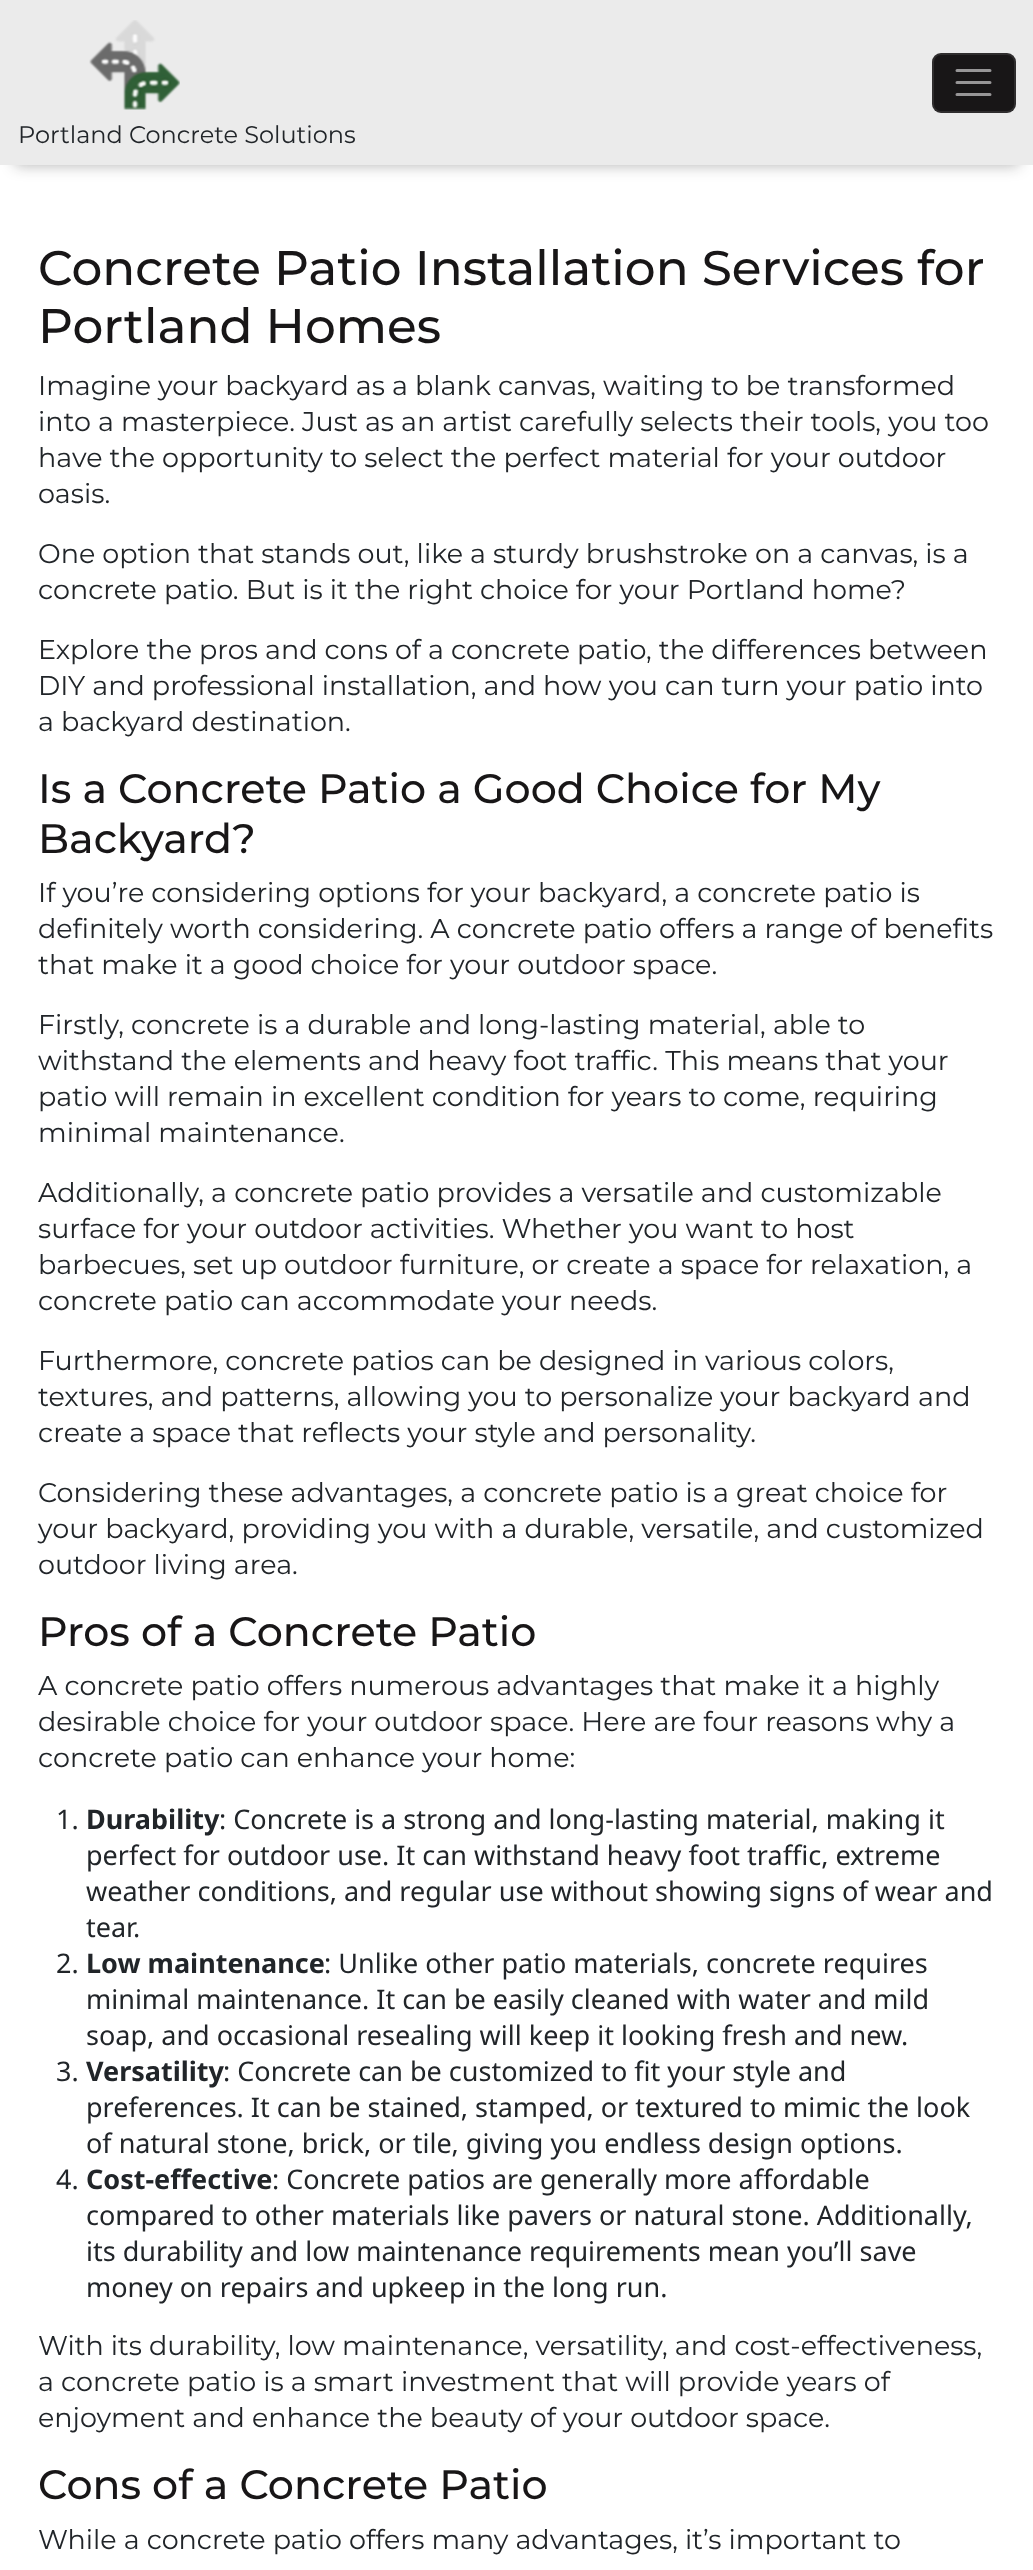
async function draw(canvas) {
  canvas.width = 1033;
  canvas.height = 2570;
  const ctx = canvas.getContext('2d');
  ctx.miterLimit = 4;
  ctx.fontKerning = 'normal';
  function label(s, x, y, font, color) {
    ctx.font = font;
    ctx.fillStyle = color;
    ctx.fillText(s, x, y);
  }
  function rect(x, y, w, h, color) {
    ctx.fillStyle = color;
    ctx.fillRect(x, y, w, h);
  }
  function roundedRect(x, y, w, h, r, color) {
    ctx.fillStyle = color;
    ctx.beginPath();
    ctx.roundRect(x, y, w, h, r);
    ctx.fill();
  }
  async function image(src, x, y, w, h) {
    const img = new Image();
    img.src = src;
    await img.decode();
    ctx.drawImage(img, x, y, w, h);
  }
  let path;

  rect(0, 0, 1033, 2570, '#fff');
  ctx.fillStyle = '#11111154';
  ctx.filter = 'blur(7.5px)';
  ctx.beginPath();
  ctx.rect(15, 30, 1004, 135);
  ctx.fill();
  ctx.filter = 'none';
  rect(0, 0, 1033, 165, '#ebebeb');
  roundedRect(932, 53, 84, 60, 9, '#181617');
  ctx.beginPath();
  ctx.roundRect(933, 54, 82, 58, 8);
  ctx.strokeStyle = '#ffffff1a';
  ctx.lineWidth = 2;
  ctx.stroke();
  path = new Path2D('M957 70.5H990M957 82.5H990M957 94.5H990');
  ctx.strokeStyle = '#979697';
  ctx.lineWidth = 3;
  ctx.lineCap = 'round';
  ctx.stroke(path);
  await image('assets/img1.png', 89, 20, 91, 90);
  label('Portland Concrete Solutions', 18, 143, '24px Montserrat', '#212529');
  label('Concrete Patio Installation Services for', 38, 285, '500 48.5px Montserrat', '#181617');
  label('Portland Homes', 38, 343, '500 48.5px Montserrat', '#181617');
  label('Imagine your backyard as a blank canvas, waiting to be transformed', 38, 395, '27px Montserrat', '#212529');
  label('into a masterpiece. Just as an artist carefully selects their tools, you too', 38, 431, '27px Montserrat', '#212529');
  label('have the opportunity to select the perfect material for your outdoor', 38, 467, '27px Montserrat', '#212529');
  label('oasis.', 38, 503, '27px Montserrat', '#212529');
  label('One option that stands out, like a sturdy brushstroke on a canvas, is a', 38, 563, '27px Montserrat', '#212529');
  label('concrete patio. But is it the right choice for your Portland home?', 38, 599, '27px Montserrat', '#212529');
  label('Explore the pros and cons of a concrete patio, the differences between', 38, 659, '27px Montserrat', '#212529');
  label('DIY and professional installation, and how you can turn your patio into', 38, 695, '27px Montserrat', '#212529');
  label('a backyard destination.', 38, 731, '27px Montserrat', '#212529');
  label('Is a Concrete Patio a Good Choice for My', 38, 803, '500 41.1px Montserrat', '#181617');
  label('Backyard?', 38, 853, '500 41.1px Montserrat', '#181617');
  label('If you’re considering options for your backyard, a concrete patio is', 38, 902, '27px Montserrat', '#212529');
  label('definitely worth considering. A concrete patio offers a range of benefits', 38, 938, '27px Montserrat', '#212529');
  label('that make it a good choice for your outdoor space.', 38, 974, '27px Montserrat', '#212529');
  label('Firstly, concrete is a durable and long-lasting material, able to', 38, 1034, '27px Montserrat', '#212529');
  label('withstand the elements and heavy foot traffic. This means that your', 38, 1070, '27px Montserrat', '#212529');
  label('patio will remain in excellent condition for years to come, requiring', 38, 1106, '27px Montserrat', '#212529');
  label('minimal maintenance.', 38, 1142, '27px Montserrat', '#212529');
  label('Additionally, a concrete patio provides a versatile and customizable', 38, 1202, '27px Montserrat', '#212529');
  label('surface for your outdoor activities. Whether you want to host', 38, 1238, '27px Montserrat', '#212529');
  label('barbecues, set up outdoor furniture, or create a space for relaxation, a', 38, 1274, '27px Montserrat', '#212529');
  label('concrete patio can accommodate your needs.', 38, 1310, '27px Montserrat', '#212529');
  label('Furthermore, concrete patios can be designed in various colors,', 38, 1370, '27px Montserrat', '#212529');
  label('textures, and patterns, allowing you to personalize your backyard and', 38, 1406, '27px Montserrat', '#212529');
  label('create a space that reflects your style and personality.', 38, 1442, '27px Montserrat', '#212529');
  label('Considering these advantages, a concrete patio is a great choice for', 38, 1502, '27px Montserrat', '#212529');
  label('your backyard, providing you with a durable, versatile, and customized', 38, 1538, '27px Montserrat', '#212529');
  label('outdoor living area.', 38, 1574, '27px Montserrat', '#212529');
  label('Pros of a Concrete Patio', 38, 1646, '500 41.1px Montserrat', '#181617');
  label('A concrete patio offers numerous advantages that make it a highly', 38, 1695, '27px Montserrat', '#212529');
  label('desirable choice for your outdoor space. Here are four reasons why a', 38, 1731, '27px Montserrat', '#212529');
  label('concrete patio can enhance your home:', 38, 1767, '27px Montserrat', '#212529');
  label('1.', 56, 1829, '27px Noto Sans', '#212529');
  label('Durability', 86, 1829, 'bold 27px Noto Sans', '#212529');
  label(': Concrete is a strong and long-lasting material, making it', 219, 1829, '27px Noto Sans', '#212529');
  label('perfect for outdoor use. It can withstand heavy foot traffic, extreme', 86, 1865, '27px Noto Sans', '#212529');
  label('weather conditions, and regular use without showing signs of wear and', 86, 1901, '27px Noto Sans', '#212529');
  label('tear.', 86, 1937, '27px Noto Sans', '#212529');
  label('2.', 56, 1973, '27px Noto Sans', '#212529');
  label('Low maintenance', 86, 1973, 'bold 27px Noto Sans', '#212529');
  label(': Unlike other patio materials, concrete requires', 324, 1973, '27px Noto Sans', '#212529');
  label('minimal maintenance. It can be easily cleaned with water and mild', 86, 2009, '27px Noto Sans', '#212529');
  label('soap, and occasional resealing will keep it looking fresh and new.', 86, 2045, '27px Noto Sans', '#212529');
  label('3.', 56, 2081, '27px Noto Sans', '#212529');
  label('Versatility', 86, 2081, 'bold 27px Noto Sans', '#212529');
  label(': Concrete can be customized to fit your style and', 223, 2081, '27px Noto Sans', '#212529');
  label('preferences. It can be stained, stamped, or textured to mimic the look', 86, 2117, '27px Noto Sans', '#212529');
  label('of natural stone, brick, or tile, giving you endless design options.', 86, 2153, '27px Noto Sans', '#212529');
  label('4.', 56, 2189, '27px Noto Sans', '#212529');
  label('Cost-effective', 86, 2189, 'bold 27px Noto Sans', '#212529');
  label(': Concrete patios are generally more affordable', 272, 2189, '27px Noto Sans', '#212529');
  label('compared to other materials like pavers or natural stone. Additionally,', 86, 2225, '27px Noto Sans', '#212529');
  label('its durability and low maintenance requirements mean you’ll save', 86, 2261, '27px Noto Sans', '#212529');
  label('money on repairs and upkeep in the long run.', 86, 2297, '27px Noto Sans', '#212529');
  label('With its durability, low maintenance, versatility, and cost-effectiveness,', 38, 2355, '27px Montserrat', '#212529');
  label('a concrete patio is a smart investment that will provide years of', 38, 2391, '27px Montserrat', '#212529');
  label('enjoyment and enhance the beauty of your outdoor space.', 38, 2427, '27px Montserrat', '#212529');
  label('Cons of a Concrete Patio', 38, 2499, '500 41.1px Montserrat', '#181617');
  label('While a concrete patio offers many advantages, it’s important to', 38, 2549, '27px Montserrat', '#212529');
}

draw(document.querySelector('canvas'));
